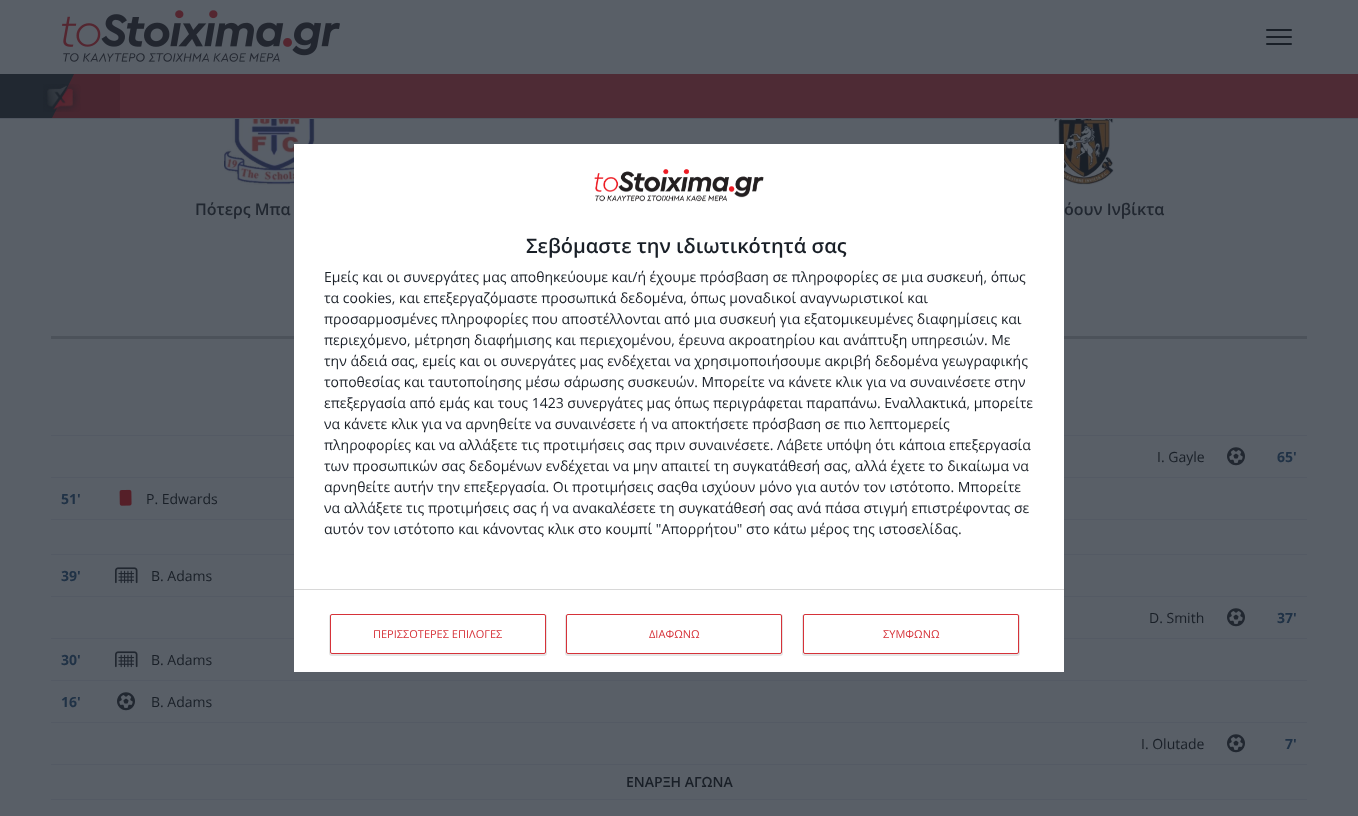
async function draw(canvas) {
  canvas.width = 1358;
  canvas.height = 816;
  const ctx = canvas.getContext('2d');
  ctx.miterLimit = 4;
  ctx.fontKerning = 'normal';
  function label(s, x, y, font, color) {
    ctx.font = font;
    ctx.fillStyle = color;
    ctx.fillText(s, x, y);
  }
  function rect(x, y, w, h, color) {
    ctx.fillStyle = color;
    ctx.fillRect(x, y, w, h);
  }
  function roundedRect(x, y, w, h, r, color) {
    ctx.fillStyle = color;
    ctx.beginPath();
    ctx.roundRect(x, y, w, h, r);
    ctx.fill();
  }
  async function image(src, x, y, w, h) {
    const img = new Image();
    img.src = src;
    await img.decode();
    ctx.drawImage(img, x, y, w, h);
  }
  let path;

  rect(0, 0, 1358, 816, '#595f67');
  rect(0, 118, 1358, 1, '#505660');
  await image('assets/img1.png', 62, 10, 278, 52);
  roundedRect(1266, 36, 26, 2, 1, '#191f27');
  roundedRect(1266, 29, 26, 2, 1, '#191f27');
  roundedRect(1266, 43, 26, 2, 1, '#191f27');
  rect(120, 74, 1238, 44, '#4e2b35');
  rect(52, 74, 68, 44, '#472630');
  rect(0, 74, 52, 44, '#212831');
  ctx.save();
  ctx.beginPath();
  ctx.rect(0, 74, 1358, 44);
  ctx.clip();
  path = new Path2D('M52 118V14L78 66Z');
  ctx.fill(path);
  ctx.restore();
  await image('assets/img2.png', 43, 84, 38, 28);
  await image('assets/img3.png', 224, 119, 91, 66);
  label('Πότερς Μπα', 195, 215, '600 16px Open Sans', '#212730');
  await image('assets/img4.png', 1054, 119, 60, 66);
  label('όουν Ινβίκτα', 1064, 215, '600 16px Open Sans', '#212730');
  rect(51, 336, 1256, 3, '#4c525a');
  rect(51, 435, 1256, 1, '#545a64');
  rect(51, 477, 1256, 1, '#545a64');
  label('I. Gayle', 1157, 462, '14px Open Sans', '#191f27');
  await image('assets/img5.png', 1227, 447, 18, 19);
  label('65\'', 1277, 462, 'bold 14px Open Sans', '#203246');
  rect(51, 519, 1256, 1, '#545a64');
  label('51\'', 61, 504, 'bold 14px Open Sans', '#203246');
  await image('assets/img6.png', 119, 489, 13, 17);
  label('P. Edwards', 146, 504, '14px Open Sans', '#191f27');
  rect(51, 554, 1256, 1, '#545a64');
  rect(51, 596, 1256, 1, '#545a64');
  label('39\'', 61, 581, 'bold 14px Open Sans', '#203246');
  await image('assets/img7.png', 115, 567, 23, 17);
  label('B. Adams', 151, 581, '14px Open Sans', '#191f27');
  rect(51, 638, 1256, 1, '#545a64');
  label('D. Smith', 1149, 623, '14px Open Sans', '#191f27');
  await image('assets/img5.png', 1227, 608, 18, 19);
  label('37\'', 1277, 623, 'bold 14px Open Sans', '#203246');
  rect(51, 680, 1256, 1, '#545a64');
  label('30\'', 61, 665, 'bold 14px Open Sans', '#203246');
  await image('assets/img7.png', 115, 651, 23, 17);
  label('B. Adams', 151, 665, '14px Open Sans', '#191f27');
  rect(51, 722, 1256, 1, '#545a64');
  label('16\'', 61, 707, 'bold 14px Open Sans', '#203246');
  await image('assets/img5.png', 117, 692, 18, 19);
  label('B. Adams', 151, 707, '14px Open Sans', '#191f27');
  rect(51, 764, 1256, 1, '#545a64');
  label('I. Olutade', 1141, 749, '14px Open Sans', '#191f27');
  await image('assets/img5.png', 1227, 734, 18, 19);
  label('7\'', 1285, 749, 'bold 14px Open Sans', '#203246');
  rect(51, 799, 1256, 1, '#545a64');
  label('ΕΝΑΡΞΗ ΑΓΩΝΑ', 626, 787, '600 14px Open Sans', '#191f27');
  rect(294, 144, 770, 528, '#fff');
  await image('assets/img8.png', 594, 169, 170, 33);
  label('Σεβόμαστε την ιδιωτικότητά σας', 526, 253, '600 20px Open Sans', '#191f27');
  label('Εμείς και οι συνεργάτες μας αποθηκεύουμε και/ή έχουμε πρόσβαση σε πληροφορίες σε μια συσκευή, όπως', 324, 282, '14px Open Sans', '#191f27');
  label('τα cookies, και επεξεργαζόμαστε προσωπικά δεδομένα, όπως μοναδικοί αναγνωριστικοί και', 324, 303, '14px Open Sans', '#191f27');
  label('προσαρμοσμένες πληροφορίες που αποστέλλονται από μια συσκευή για εξατομικευμένες διαφημίσεις και', 324, 324, '14px Open Sans', '#191f27');
  label('περιεχόμενο, μέτρηση διαφήμισης και περιεχομένου, έρευνα ακροατηρίου και ανάπτυξη υπηρεσιών. Με', 324, 345, '14px Open Sans', '#191f27');
  label('την άδειά σας, εμείς και οι συνεργάτες μας ενδέχεται να χρησιμοποιήσουμε ακριβή δεδομένα γεωγραφικής', 324, 366, '14px Open Sans', '#191f27');
  label('τοποθεσίας και ταυτοποίησης μέσω σάρωσης συσκευών. Μπορείτε να κάνετε κλικ για να συναινέσετε στην', 324, 387, '14px Open Sans', '#191f27');
  label('επεξεργασία από εμάς και τους 1423 συνεργάτες μας όπως περιγράφεται παραπάνω. Εναλλακτικά, μπορείτε', 324, 408, '14px Open Sans', '#191f27');
  label('να κάνετε κλικ για να αρνηθείτε να συναινέσετε ή να αποκτήσετε πρόσβαση σε πιο λεπτομερείς', 324, 429, '14px Open Sans', '#191f27');
  label('πληροφορίες και να αλλάξετε τις προτιμήσεις σας πριν συναινέσετε. Λάβετε υπόψη ότι κάποια επεξεργασία', 324, 450, '14px Open Sans', '#191f27');
  label('των προσωπικών σας δεδομένων ενδέχεται να μην απαιτεί τη συγκατάθεσή σας, αλλά έχετε το δικαίωμα να', 324, 471, '14px Open Sans', '#191f27');
  label('αρνηθείτε αυτήν την επεξεργασία. Οι προτιμήσεις σαςθα ισχύουν μόνο για αυτόν τον ιστότοπο. Μπορείτε', 324, 492, '14px Open Sans', '#191f27');
  label('να αλλάξετε τις προτιμήσεις σας ή να ανακαλέσετε τη συγκατάθεσή σας ανά πάσα στιγμή επιστρέφοντας σε', 324, 513, '14px Open Sans', '#191f27');
  label('αυτόν τον ιστότοπο και κάνοντας κλικ στο κουμπί "Απορρήτου" στο κάτω μέρος της ιστοσελίδας.', 324, 534, '14px Open Sans', '#191f27');
  rect(294, 589, 770, 1, '#d8d8d8');
  ctx.fillStyle = '#0000001a';
  ctx.filter = 'blur(0.5px)';
  ctx.beginPath();
  ctx.roundRect(329, 614, 218, 42, 3);
  ctx.fill();
  ctx.filter = 'none';
  ctx.fillStyle = '#fff';
  ctx.beginPath();
  ctx.roundRect(330.5, 614.5, 215, 39, 1.5);
  ctx.fill();
  ctx.strokeStyle = '#d63239';
  ctx.stroke();
  label('ΠΕΡΙΣΣΟΤΕΡΕΣ ΕΠΙΛΟΓΕΣ', 373, 638, '11px Open Sans', '#d63239');
  ctx.fillStyle = '#0000001a';
  ctx.filter = 'blur(0.5px)';
  ctx.beginPath();
  ctx.roundRect(565, 614, 218, 42, 3);
  ctx.fill();
  ctx.filter = 'none';
  ctx.fillStyle = '#fff';
  ctx.beginPath();
  ctx.roundRect(566.5, 614.5, 215, 39, 1.5);
  ctx.fill();
  ctx.stroke();
  label('ΔΙΑΦΩΝΩ', 649, 638, '11px Open Sans', '#d63239');
  ctx.fillStyle = '#0000001a';
  ctx.filter = 'blur(0.5px)';
  ctx.beginPath();
  ctx.roundRect(802, 614, 218, 42, 3);
  ctx.fill();
  ctx.filter = 'none';
  ctx.fillStyle = '#fff';
  ctx.beginPath();
  ctx.roundRect(803.5, 614.5, 215, 39, 1.5);
  ctx.fill();
  ctx.stroke();
  label('ΣΥΜΦΩΝΩ', 883, 638, '11px Open Sans', '#d63239');
}

draw(document.querySelector('canvas'));
